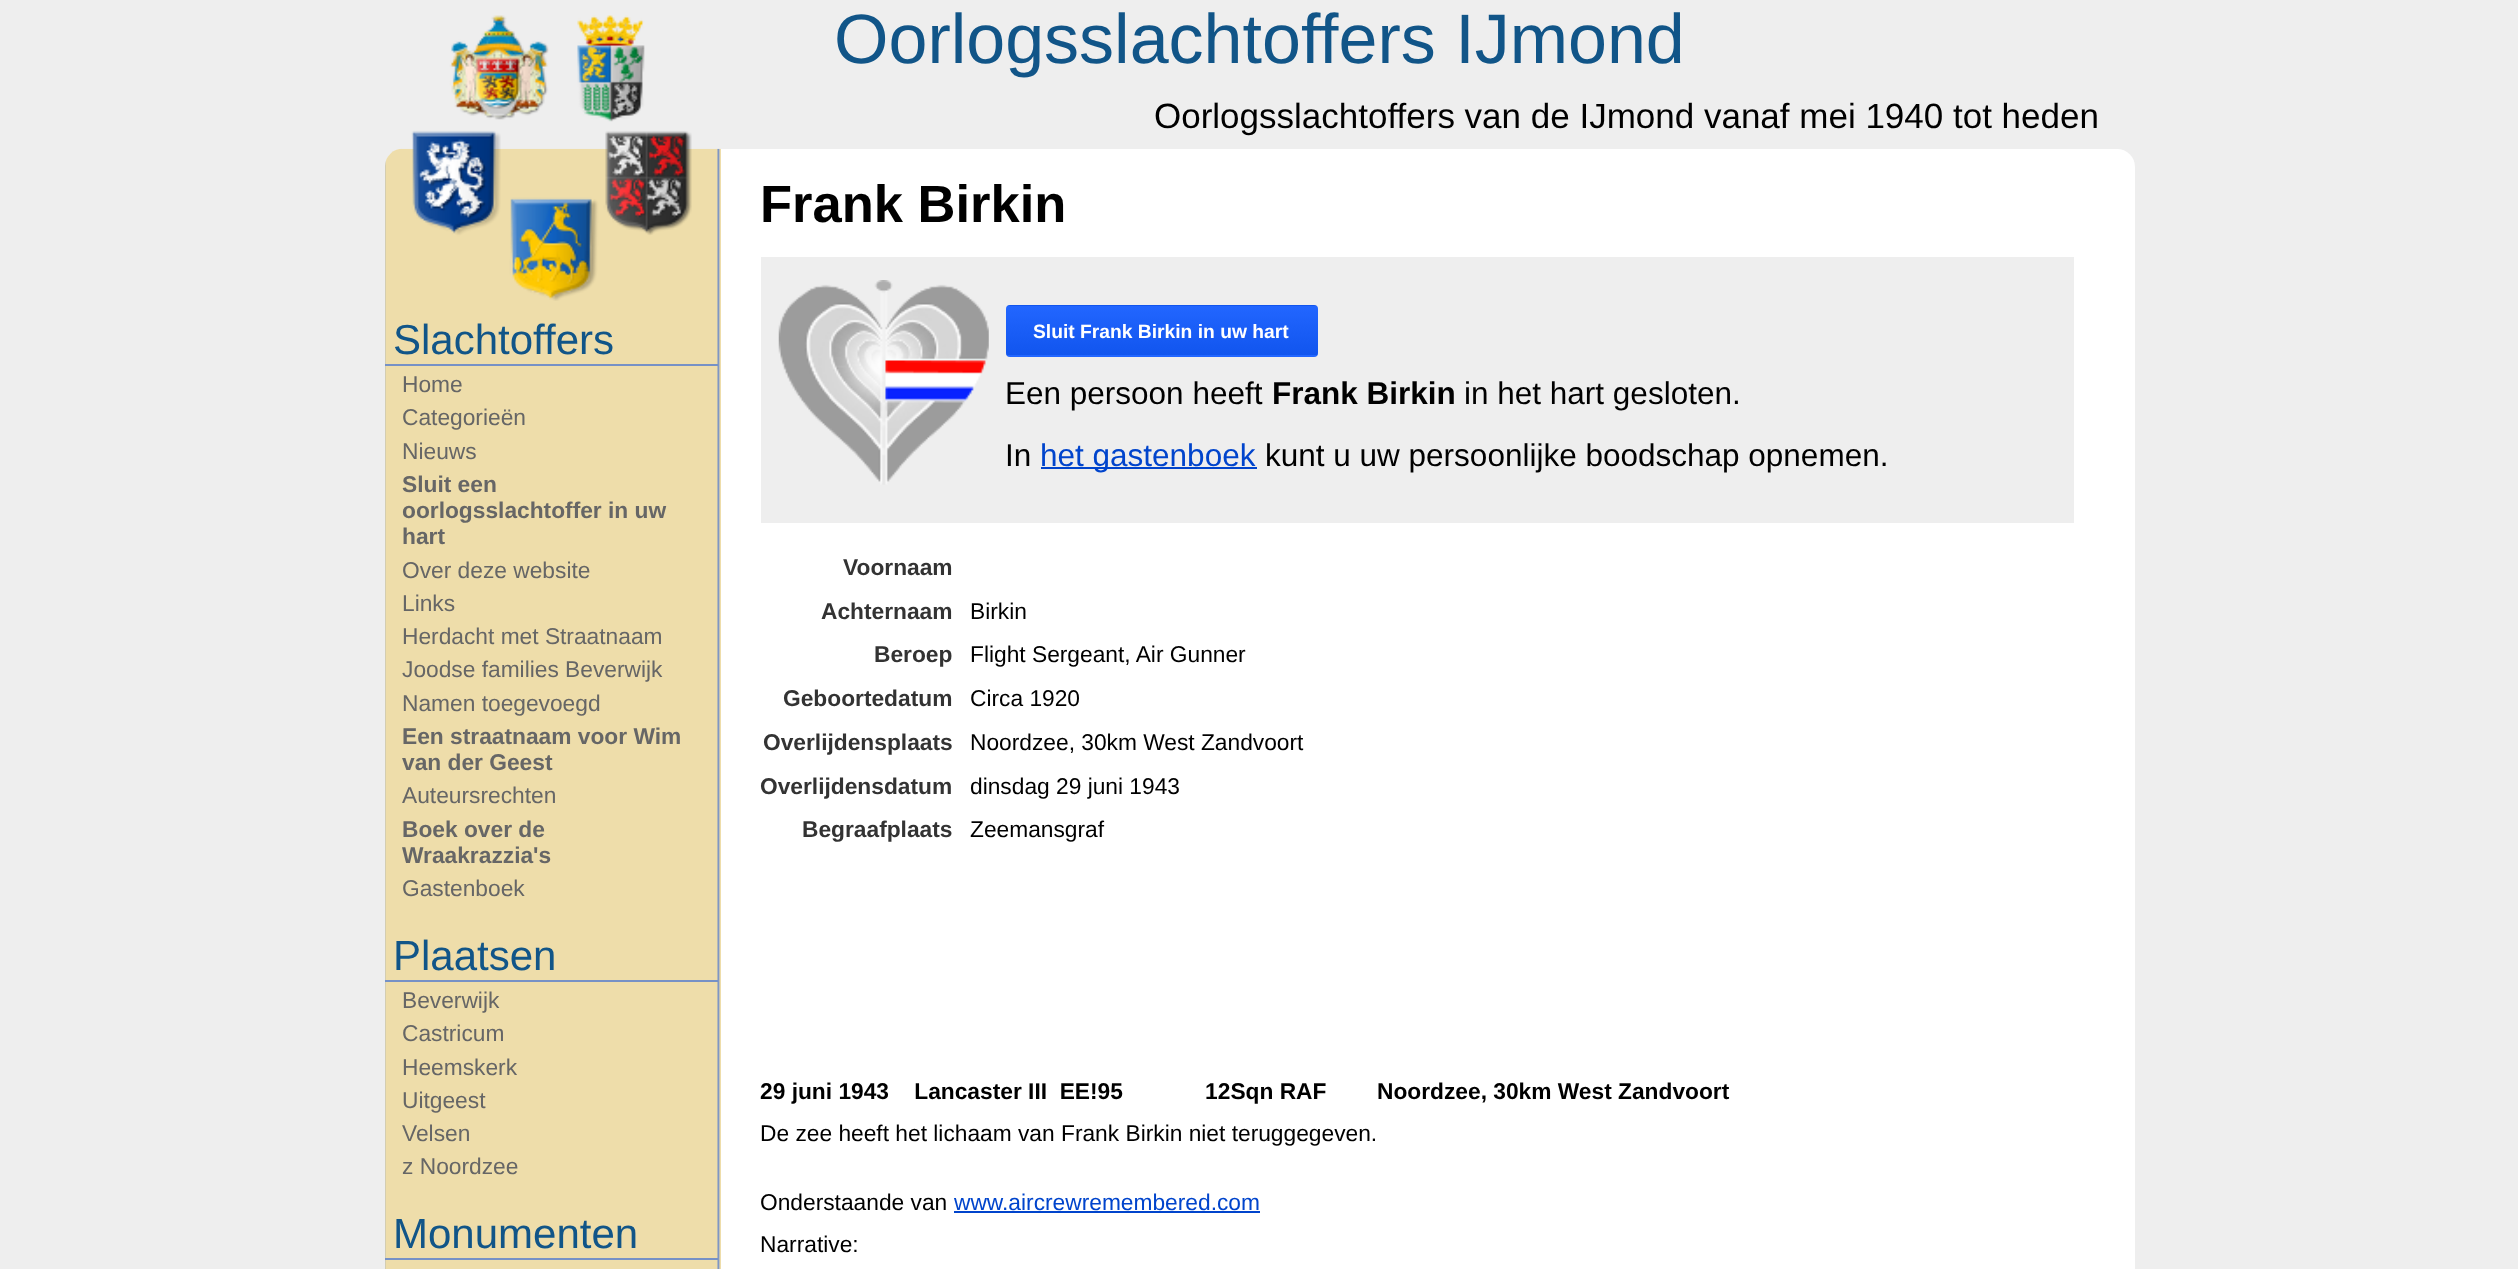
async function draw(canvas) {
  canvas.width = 2518;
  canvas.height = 1269;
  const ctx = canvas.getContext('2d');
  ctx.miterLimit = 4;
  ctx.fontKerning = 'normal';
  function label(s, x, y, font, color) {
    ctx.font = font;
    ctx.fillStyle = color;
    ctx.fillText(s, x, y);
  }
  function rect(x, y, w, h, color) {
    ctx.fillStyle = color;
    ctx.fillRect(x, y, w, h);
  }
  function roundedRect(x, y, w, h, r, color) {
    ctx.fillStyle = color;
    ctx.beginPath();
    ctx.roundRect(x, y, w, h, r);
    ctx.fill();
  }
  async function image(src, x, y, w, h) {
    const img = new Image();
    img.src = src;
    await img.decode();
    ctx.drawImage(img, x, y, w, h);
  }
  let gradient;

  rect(0, 0, 2518, 1269, '#eee');
  label('Oorlogsslachtoffers IJmond', 834, 63, '70px Liberation Sans', '#158');
  label('Oorlogsslachtoffers van de IJmond vanaf mei 1940 tot heden', 1154, 128, '35px Liberation Sans', '#000');
  roundedRect(385, 149, 1750, 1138, 18, '#fff');
  await image('assets/img1.png', 385, 148, 336, 1121);
  await image('assets/img2.png', 411, 15, 281, 286);
  rect(385, 364, 333, 2, '#7691c6');
  label('Slachtoffers', 393, 354, '42px Liberation Sans', '#158');
  label('Home', 402, 392, '22.75px Liberation Sans', '#666');
  label('Categorieën', 402, 425, '22.75px Liberation Sans', '#666');
  label('Nieuws', 402, 459, '22.75px Liberation Sans', '#666');
  label('Sluit een', 402, 492, 'bold 22.75px Liberation Sans', '#666');
  label('oorlogsslachtoffer in uw', 402, 518, 'bold 22.75px Liberation Sans', '#666');
  label('hart', 402, 544, 'bold 22.75px Liberation Sans', '#666');
  label('Over deze website', 402, 578, '22.75px Liberation Sans', '#666');
  label('Links', 402, 611, '22.75px Liberation Sans', '#666');
  label('Herdacht met Straatnaam', 402, 644, '22.75px Liberation Sans', '#666');
  label('Joodse families Beverwijk', 402, 677, '22.75px Liberation Sans', '#666');
  label('Namen toegevoegd', 402, 711, '22.75px Liberation Sans', '#666');
  label('Een straatnaam voor Wim', 402, 744, 'bold 22.75px Liberation Sans', '#666');
  label('van der Geest', 402, 770, 'bold 22.75px Liberation Sans', '#666');
  label('Auteursrechten', 402, 803, '22.75px Liberation Sans', '#666');
  label('Boek over de', 402, 837, 'bold 22.75px Liberation Sans', '#666');
  label('Wraakrazzia\'s', 402, 863, 'bold 22.75px Liberation Sans', '#666');
  label('Gastenboek', 402, 896, '22.75px Liberation Sans', '#666');
  rect(385, 980, 333, 2, '#7691c6');
  label('Plaatsen', 393, 970, '42px Liberation Sans', '#158');
  label('Beverwijk', 402, 1008, '22.75px Liberation Sans', '#666');
  label('Castricum', 402, 1041, '22.75px Liberation Sans', '#666');
  label('Heemskerk', 402, 1075, '22.75px Liberation Sans', '#666');
  label('Uitgeest', 402, 1108, '22.75px Liberation Sans', '#666');
  label('Velsen', 402, 1141, '22.75px Liberation Sans', '#666');
  label('z Noordzee', 402, 1174, '22.75px Liberation Sans', '#666');
  rect(385, 1258, 333, 2, '#7691c6');
  label('Monumenten', 393, 1248, '42px Liberation Sans', '#158');
  label('Frank Birkin', 760, 222, 'bold 52.5px Liberation Sans', '#000');
  rect(761, 257, 1313, 266, '#eee');
  await image('assets/img3.png', 778, 280, 211, 205);
  ctx.save();
  ctx.beginPath();
  ctx.roundRect(1006, 305, 312, 52, 4);
  ctx.clip();
  gradient = ctx.createLinearGradient(1162, 257, 1162, 306);
  gradient.addColorStop(0, '#26f');
  gradient.addColorStop(1, '#15e');
  ctx.fillStyle = gradient;
  ctx.fillRect(1006, 305, 312, 1);
  gradient = ctx.createLinearGradient(1162, 306, 1162, 355);
  gradient.addColorStop(0, '#26f');
  gradient.addColorStop(1, '#15e');
  ctx.fillStyle = gradient;
  ctx.fillRect(1006, 306, 312, 49);
  gradient = ctx.createLinearGradient(1162, 355, 1162, 404);
  gradient.addColorStop(0, '#26f');
  gradient.addColorStop(1, '#15e');
  ctx.fillStyle = gradient;
  ctx.fillRect(1006, 355, 312, 2);
  ctx.restore();
  label('Sluit Frank Birkin in uw hart', 1033, 338, 'bold 19.25px Liberation Sans', '#fff');
  label('Een persoon heeft', 1005, 404, '31.5px Liberation Sans', '#000');
  label('Frank Birkin', 1272, 404, 'bold 31.5px Liberation Sans', '#000');
  label('in het hart gesloten.', 1464, 404, '31.5px Liberation Sans', '#000');
  label('In', 1005, 466, '31.5px Liberation Sans', '#000');
  rect(1041, 467, 216, 2, '#04c');
  label('het gastenboek', 1040, 466, '31.5px Liberation Sans', '#04c');
  label('kunt u uw persoonlijke boodschap opnemen.', 1265, 466, '31.5px Liberation Sans', '#000');
  label('Voornaam', 843, 575, 'bold 22.75px Liberation Sans', '#333');
  label('Achternaam', 821, 619, 'bold 22.75px Liberation Sans', '#333');
  label('Birkin', 970, 619, '22.75px Liberation Sans', '#000');
  label('Beroep', 874, 662, 'bold 22.75px Liberation Sans', '#333');
  label('Flight Sergeant, Air Gunner', 970, 662, '22.75px Liberation Sans', '#000');
  label('Geboortedatum', 783, 706, 'bold 22.75px Liberation Sans', '#333');
  label('Circa 1920', 970, 706, '22.75px Liberation Sans', '#000');
  label('Overlijdensplaats', 763, 750, 'bold 22.75px Liberation Sans', '#333');
  label('Noordzee, 30km West Zandvoort', 970, 750, '22.75px Liberation Sans', '#000');
  label('Overlijdensdatum', 760, 794, 'bold 22.75px Liberation Sans', '#333');
  label('dinsdag 29 juni 1943', 970, 794, '22.75px Liberation Sans', '#000');
  label('Begraafplaats', 802, 837, 'bold 22.75px Liberation Sans', '#333');
  label('Zeemansgraf', 970, 837, '22.75px Liberation Sans', '#000');
  label('29 juni 1943    Lancaster III  EE!95             12Sqn RAF        Noordzee, 30km West Zandvoort', 760, 1099, 'bold 22.75px Liberation Sans', '#000');
  label('De zee heeft het lichaam van Frank Birkin niet teruggegeven.', 760, 1141, '22.75px Liberation Sans', '#000');
  label('Onderstaande van', 760, 1210, '22.75px Liberation Sans', '#000');
  label('www.aircrewremembered.com', 954, 1210, '22.75px Liberation Sans', '#04c');
  rect(954, 1211, 306, 2, '#04c');
  label('Narrative:', 760, 1252, '22.75px Liberation Sans', '#000');
}

draw(document.querySelector('canvas'));
